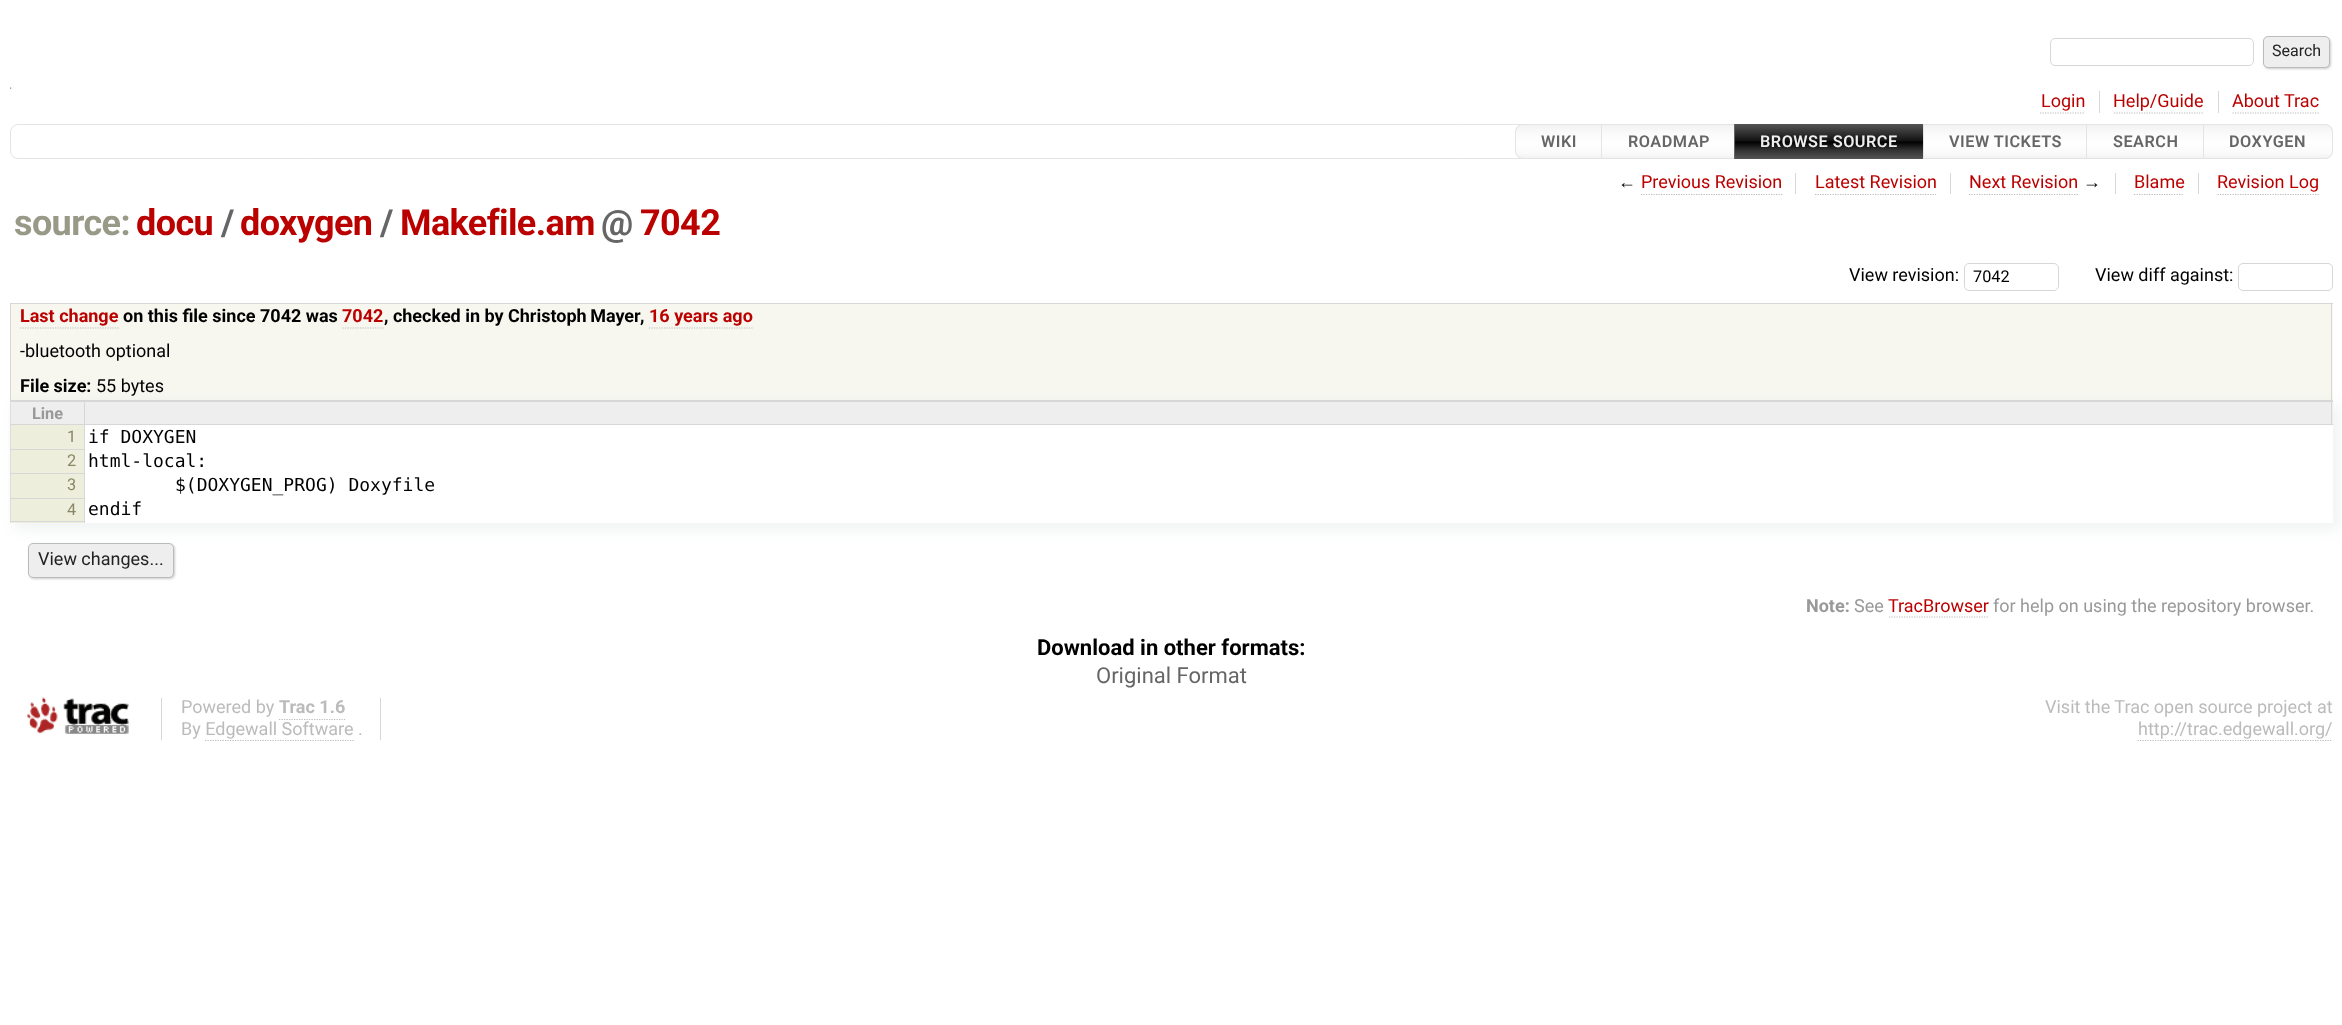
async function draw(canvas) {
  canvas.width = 2342;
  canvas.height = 1025;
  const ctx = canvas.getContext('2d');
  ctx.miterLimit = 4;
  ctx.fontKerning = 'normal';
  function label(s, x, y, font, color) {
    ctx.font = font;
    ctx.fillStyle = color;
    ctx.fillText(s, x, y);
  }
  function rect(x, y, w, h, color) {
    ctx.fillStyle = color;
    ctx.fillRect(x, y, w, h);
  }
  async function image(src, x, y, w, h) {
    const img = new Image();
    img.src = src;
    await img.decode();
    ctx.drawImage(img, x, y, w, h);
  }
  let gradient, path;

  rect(0, 0, 2342, 1025, '#fff');
  ctx.beginPath();
  ctx.roundRect(2050.5, 38.5, 203, 27, 4.5);
  ctx.strokeStyle = '#d7d7d7';
  ctx.stroke();
  ctx.fillStyle = '#ccc';
  ctx.filter = 'blur(1px)';
  ctx.beginPath();
  ctx.roundRect(2264, 38, 67, 31, 5);
  ctx.fill();
  ctx.filter = 'none';
  ctx.fillStyle = '#eee';
  ctx.beginPath();
  ctx.roundRect(2263.5, 36.5, 66, 31, 4.5);
  ctx.fill();
  ctx.strokeStyle = '#bbb';
  ctx.stroke();
  label('Search', 2272, 56, '16px Roboto', '#222');
  await image('assets/img1.png', 10, 87, 2, 2);
  rect(2099, 91, 1, 22, '#d7d7d7');
  label('Login', 2041, 107, '18px Roboto', '#b00');
  path = new Path2D('M2040 113H2085');
  ctx.lineWidth = 1.2;
  ctx.setLineDash([1.25, 1.25]);
  ctx.stroke(path);
  rect(2218, 91, 1, 22, '#d7d7d7');
  label('Help/Guide', 2113, 107, '18px Roboto', '#b00');
  path = new Path2D('M2114 113H2204');
  ctx.stroke(path);
  label('About Trac', 2232, 107, '18px Roboto', '#b00');
  path = new Path2D('M2232.5 113H2319');
  ctx.stroke(path);
  ctx.beginPath();
  ctx.roundRect(10.5, 124.5, 2322, 34, 7.5);
  ctx.strokeStyle = '#e4e4e4';
  ctx.lineWidth = 1;
  ctx.setLineDash([]);
  ctx.stroke();
  ctx.save();
  ctx.beginPath();
  ctx.roundRect(1515, 124, 88, 35, [8, 0, 0, 8]);
  ctx.clip();
  gradient = ctx.createLinearGradient(1559, 125, 1559, 158);
  gradient.addColorStop(0, '#f2f2f2');
  gradient.addColorStop(0.25, '#fafafa');
  gradient.addColorStop(0.49, '#fefefe');
  gradient.addColorStop(0.51, '#fff');
  gradient.addColorStop(0.85, '#fafafa');
  gradient.addColorStop(1, '#f2f2f2');
  ctx.fillStyle = gradient;
  ctx.fillRect(1515, 125, 86, 33);
  ctx.restore();
  ctx.beginPath();
  ctx.roundRect(1515.5, 124.5, 87, 34, [7.5, 0, 0, 7.5]);
  ctx.stroke();
  ctx.letterSpacing = '0.5px';
  label('WIKI', 1541, 147, '600 16.25px Roboto', '#666');
  gradient = ctx.createLinearGradient(1669, 125, 1669, 158);
  gradient.addColorStop(0, '#f2f2f2');
  gradient.addColorStop(0.25, '#fafafa');
  gradient.addColorStop(0.49, '#fefefe');
  gradient.addColorStop(0.51, '#fff');
  gradient.addColorStop(0.85, '#fafafa');
  gradient.addColorStop(1, '#f2f2f2');
  ctx.fillStyle = gradient;
  ctx.fillRect(1602, 125, 132, 33);
  ctx.strokeRect(1601.5, 124.5, 134, 34);
  label('ROADMAP', 1628, 147, '600 16.25px Roboto', '#666');
  ctx.strokeStyle = '#666';
  ctx.strokeRect(1734.5, 124.5, 190, 34);
  gradient = ctx.createLinearGradient(1829, 124, 1829, 159);
  gradient.addColorStop(0, '#555');
  gradient.addColorStop(0.25, '#333');
  gradient.addColorStop(0.49, '#111');
  gradient.addColorStop(0.51, '#000');
  gradient.addColorStop(0.75, '#333');
  gradient.addColorStop(1, '#555');
  ctx.fillStyle = gradient;
  ctx.fillRect(1735, 124, 188, 35);
  label('BROWSE SOURCE', 1760, 147, '600 16.25px Roboto', '#eee');
  gradient = ctx.createLinearGradient(2006, 125, 2006, 158);
  gradient.addColorStop(0, '#f2f2f2');
  gradient.addColorStop(0.25, '#fafafa');
  gradient.addColorStop(0.49, '#fefefe');
  gradient.addColorStop(0.51, '#fff');
  gradient.addColorStop(0.85, '#fafafa');
  gradient.addColorStop(1, '#f2f2f2');
  ctx.fillStyle = gradient;
  ctx.fillRect(1924, 125, 162, 33);
  ctx.strokeStyle = '#e4e4e4';
  ctx.strokeRect(1923.5, 124.5, 165, 34);
  label('VIEW TICKETS', 1949, 147, '600 16.25px Roboto', '#666');
  gradient = ctx.createLinearGradient(2146, 125, 2146, 158);
  gradient.addColorStop(0, '#f2f2f2');
  gradient.addColorStop(0.25, '#fafafa');
  gradient.addColorStop(0.49, '#fefefe');
  gradient.addColorStop(0.51, '#fff');
  gradient.addColorStop(0.85, '#fafafa');
  gradient.addColorStop(1, '#f2f2f2');
  ctx.fillStyle = gradient;
  ctx.fillRect(2087, 125, 116, 33);
  ctx.strokeRect(2086.5, 124.5, 118, 34);
  label('SEARCH', 2113, 147, '600 16.25px Roboto', '#666');
  ctx.save();
  ctx.beginPath();
  ctx.roundRect(2203, 124, 130, 35, [0, 8, 8, 0]);
  ctx.clip();
  gradient = ctx.createLinearGradient(2268, 125, 2268, 158);
  gradient.addColorStop(0, '#f2f2f2');
  gradient.addColorStop(0.25, '#fafafa');
  gradient.addColorStop(0.49, '#fefefe');
  gradient.addColorStop(0.51, '#fff');
  gradient.addColorStop(0.85, '#fafafa');
  gradient.addColorStop(1, '#f2f2f2');
  ctx.fillStyle = gradient;
  ctx.fillRect(2204, 125, 129, 33);
  ctx.restore();
  ctx.beginPath();
  ctx.roundRect(2203.5, 124.5, 129, 34, [0, 7.5, 7.5, 0]);
  ctx.stroke();
  label('DOXYGEN', 2229, 147, '600 16.25px Roboto', '#666');
  rect(1795, 173, 1, 21, '#d7d7d7');
  ctx.letterSpacing = '0px';
  label('←', 1618, 188, '18px Liberation Sans', '#000');
  label('Previous Revision', 1641, 188, '18px Roboto', '#b00');
  path = new Path2D('M1641 194.5H1782.5');
  ctx.strokeStyle = '#bbb';
  ctx.lineWidth = 1.2;
  ctx.setLineDash([1.25, 1.25]);
  ctx.stroke(path);
  rect(1950, 173, 1, 21, '#d7d7d7');
  label('Latest Revision', 1815, 188, '18px Roboto', '#b00');
  path = new Path2D('M1815 194.5H1936');
  ctx.stroke(path);
  rect(2115, 173, 1, 21, '#d7d7d7');
  label('Next Revision', 1969, 188, '18px Roboto', '#b00');
  path = new Path2D('M1969 194.5H2079');
  ctx.stroke(path);
  label('→', 2083, 188, '18px Liberation Sans', '#000');
  rect(2198, 173, 1, 21, '#d7d7d7');
  label('Blame', 2134, 188, '18px Roboto', '#b00');
  path = new Path2D('M2134 194.5H2184');
  ctx.stroke(path);
  label('Revision Log', 2217, 188, '18px Roboto', '#b00');
  path = new Path2D('M2217.5 194.5H2319');
  ctx.stroke(path);
  ctx.letterSpacing = '-0.6px';
  label('source:', 14, 235, 'bold 36px Roboto', '#998');
  label('docu', 136, 235, 'bold 36px Roboto', '#b00');
  label('/', 221, 235, 'bold 36px Roboto', '#666');
  label('doxygen', 240, 235, 'bold 36px Roboto', '#b00');
  label('/', 380, 235, 'bold 36px Roboto', '#666');
  label('Makefile.am', 400, 235, 'bold 36px Roboto', '#b00');
  label('@', 601, 235, 'bold 36px Roboto', '#666');
  label('7042', 640, 235, 'bold 36px Roboto', '#b00');
  ctx.letterSpacing = '0px';
  label('View revision:', 1849, 281, '18px Roboto', '#000');
  ctx.beginPath();
  ctx.roundRect(1964.5, 263.5, 94, 27, 4.5);
  ctx.strokeStyle = '#d7d7d7';
  ctx.lineWidth = 1;
  ctx.setLineDash([]);
  ctx.stroke();
  label('7042', 1973, 282, '16.25px Roboto', '#000');
  label('View diff against:', 2095, 281, '18px Roboto', '#000');
  ctx.beginPath();
  ctx.roundRect(2238.5, 263.5, 94, 27, 4.5);
  ctx.stroke();
  rect(11, 304, 2322, 96, '#f7f7f0');
  rect(10, 303, 2323, 1, '#d7d7d7');
  rect(2331, 303, 1, 98, '#d7d7d7');
  rect(10, 400, 2323, 1, '#d7d7d7');
  rect(10, 303, 1, 98, '#d7d7d7');
  label('Last change', 20, 322, 'bold 18px Roboto', '#b00');
  path = new Path2D('M20 328H119');
  ctx.strokeStyle = '#bbb';
  ctx.lineWidth = 1.2;
  ctx.setLineDash([1.25, 1.25]);
  ctx.stroke(path);
  label('on this file since 7042 was', 123, 322, 'bold 18px Roboto', '#000');
  label('7042', 342, 322, 'bold 18px Roboto', '#b00');
  path = new Path2D('M342.5 328H384');
  ctx.stroke(path);
  label(', checked in by', 384, 322, 'bold 18px Roboto', '#000');
  ctx.wordSpacing = '-1px';
  label('Christoph Mayer', 508, 322, 'bold 18px Roboto', '#000');
  ctx.wordSpacing = '0px';
  label(',', 640, 322, 'bold 18px Roboto', '#000');
  label('16 years ago', 649, 322, 'bold 18px Roboto', '#b00');
  path = new Path2D('M649 328H752.5');
  ctx.stroke(path);
  label('-bluetooth optional', 20, 357, '18px Roboto', '#000');
  ctx.fillStyle = '#d2d7dc4d';
  ctx.filter = 'blur(7px)';
  ctx.beginPath();
  ctx.rect(14, 405, 2326, 125);
  ctx.fill();
  ctx.filter = 'none';
  label('File size:', 20, 392, 'bold 18px Roboto', '#000');
  label('55 bytes', 96, 392, '18px Roboto', '#000');
  rect(10, 401, 1, 122, '#ddd');
  rect(85, 402, 2248, 22, '#eee');
  rect(10, 401, 2323, 1, '#d7d7d7');
  rect(2331, 401, 1, 24, '#d7d7d7');
  rect(84, 424, 1, 99, '#d7d7d7');
  rect(84, 424, 2249, 1, '#d7d7d7');
  rect(11, 402, 73, 22, '#eee');
  rect(84, 401, 1, 24, '#d7d7d7');
  rect(10, 424, 75, 1, '#d7d7d7');
  label('Line', 32, 419, 'bold 16.25px Roboto', '#999');
  rect(11, 425, 73, 24, '#eed');
  rect(10, 449, 75, 1, '#d7d7d7');
  label('1', 67, 442, '16.25px Roboto', '#886');
  rect(85, 425, 2248, 98, '#fff');
  label('if DOXYGEN', 88, 443, '18px DejaVu Sans Mono', '#000');
  rect(11, 450, 73, 23, '#eed');
  rect(10, 473, 75, 1, '#d7d7d7');
  label('2', 67, 466, '16.25px Roboto', '#886');
  label('html-local:', 88, 467, '18px DejaVu Sans Mono', '#000');
  rect(11, 474, 73, 24, '#eed');
  rect(10, 498, 75, 1, '#d7d7d7');
  label('3', 67, 490, '16.25px Roboto', '#886');
  label('$(DOXYGEN_PROG) Doxyfile', 175, 491, '18px DejaVu Sans Mono', '#000');
  rect(11, 499, 73, 24, '#eed');
  rect(10, 521, 75, 1, '#d7d7d7');
  label('4', 67, 515, '16.25px Roboto', '#886');
  label('endif', 88, 515, '18px DejaVu Sans Mono', '#000');
  ctx.fillStyle = '#ccc';
  ctx.filter = 'blur(1px)';
  ctx.beginPath();
  ctx.roundRect(29, 544, 146, 35, 5);
  ctx.fill();
  ctx.filter = 'none';
  ctx.fillStyle = '#eee';
  ctx.beginPath();
  ctx.roundRect(28.5, 543.5, 145, 34, 4.5);
  ctx.fill();
  ctx.lineWidth = 1;
  ctx.setLineDash([]);
  ctx.stroke();
  label('View changes...', 38, 565, '18px Roboto', '#222');
  label('Note:', 1806, 612, 'bold 18px Roboto', '#999');
  label('See', 1854, 612, '18px Roboto', '#999');
  label('TracBrowser', 1888, 612, '18px Roboto', '#b00');
  path = new Path2D('M1889 617H1989');
  ctx.lineWidth = 1.2;
  ctx.setLineDash([1.25, 1.25]);
  ctx.stroke(path);
  label('for help on using the repository browser.', 1993, 612, '18px Roboto', '#999');
  label('Download in other formats:', 1037, 655, 'bold 22px Roboto', '#000');
  label('Original Format', 1096, 683, '22px Roboto', '#666');
  await image('assets/img2.png', 27, 697, 102, 37);
  rect(380, 698, 1, 42, '#d7d7d7');
  rect(161, 698, 1, 42, '#d7d7d7');
  label('Powered by', 181, 713, '18px Roboto', '#bbb');
  label('Trac 1.6', 279, 713, 'bold 18px Roboto', '#bbb');
  path = new Path2D('M279 719.5H345');
  ctx.stroke(path);
  label('By Edgewall Software .', 181, 735, '18px Roboto', '#bbb');
  path = new Path2D('M205 740.5H354');
  ctx.stroke(path);
  label('Visit the Trac open source project at', 2045, 713, '18px Roboto', '#bbb');
  label('http://trac.edgewall.org/', 2138, 735, '18px Roboto', '#bbb');
  path = new Path2D('M2137.5 740.5H2332.5');
  ctx.stroke(path);
}

draw(document.querySelector('canvas'));
